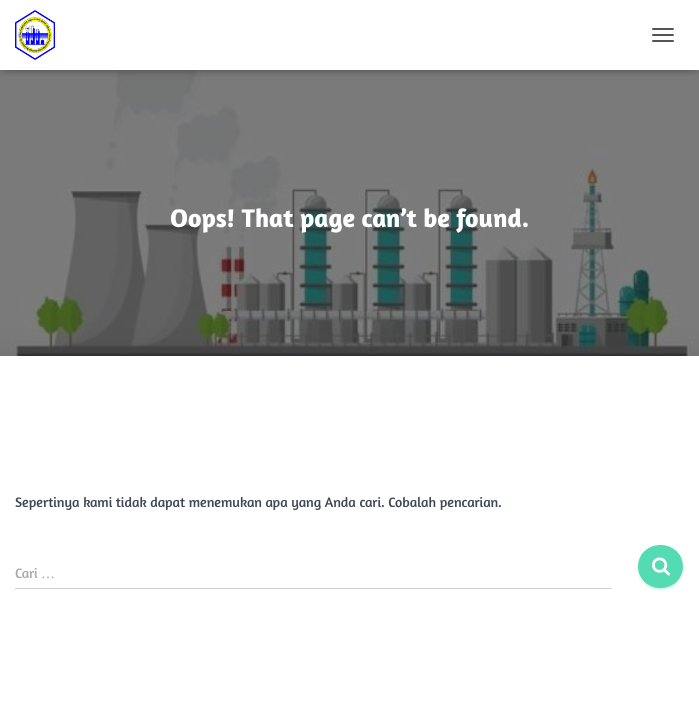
async function draw(canvas) {
  canvas.width = 699;
  canvas.height = 725;
  const ctx = canvas.getContext('2d');
  ctx.miterLimit = 4;
  ctx.fontKerning = 'normal';
  function label(s, x, y, font, color) {
    ctx.font = font;
    ctx.fillStyle = color;
    ctx.fillText(s, x, y);
  }
  function rect(x, y, w, h, color) {
    ctx.fillStyle = color;
    ctx.fillRect(x, y, w, h);
  }
  function roundedRect(x, y, w, h, r, color) {
    ctx.fillStyle = color;
    ctx.beginPath();
    ctx.roundRect(x, y, w, h, r);
    ctx.fill();
  }
  async function image(src, x, y, w, h) {
    const img = new Image();
    img.src = src;
    await img.decode();
    ctx.drawImage(img, x, y, w, h);
  }

  rect(0, 0, 699, 725, '#fff');
  await image('assets/img2.png', 0, 70, 699, 286);
  ctx.fillStyle = '#0000001a';
  ctx.filter = 'blur(2.5px)';
  ctx.beginPath();
  ctx.rect(2, 6, 695, 66);
  ctx.fill();
  ctx.filter = 'none';
  ctx.fillStyle = '#0000001f';
  ctx.filter = 'blur(5px)';
  ctx.beginPath();
  ctx.rect(0, 1, 699, 70);
  ctx.fill();
  ctx.filter = 'none';
  ctx.fillStyle = '#0000006b';
  ctx.filter = 'blur(5px)';
  ctx.beginPath();
  ctx.rect(6, 7, 687, 58);
  ctx.fill();
  ctx.filter = 'none';
  rect(0, 0, 699, 70, '#fff');
  await image('assets/img1.png', 15, 10, 40, 50);
  roundedRect(652, 28, 22, 2, 1, '#555');
  roundedRect(652, 34, 22, 2, 1, '#555');
  roundedRect(652, 40, 22, 2, 1, '#555');
  label('Oops! That page can’t be found.', 170, 227, 'bold 26px Amaranth', '#fff');
  ctx.fillStyle = '#0000001f';
  ctx.filter = 'blur(15px)';
  ctx.beginPath();
  ctx.rect(-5, 357, 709, 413);
  ctx.fill();
  ctx.filter = 'none';
  rect(0, 356, 699, 369, '#fff');
  label('Sepertinya kami tidak dapat menemukan apa yang Anda cari. Cobalah pencarian.', 15, 507, '14px Amaranth', '#3c4858');
  label('Cari', 15, 578, '14px Amaranth', '#aaa');
  label('…', 41, 578, '14px Liberation Serif', '#aaa');
  rect(15, 588, 597, 1, '#d2d2d2');
  ctx.fillStyle = '#55dbb31f';
  ctx.filter = 'blur(2.5px)';
  ctx.beginPath();
  ctx.roundRect(638, 546, 45, 43, 21.5);
  ctx.fill();
  ctx.filter = 'none';
  ctx.fillStyle = '#55dbb333';
  ctx.filter = 'blur(0.5px)';
  ctx.beginPath();
  ctx.roundRect(640, 550, 41, 39, 19.5);
  ctx.fill();
  ctx.filter = 'none';
  ctx.fillStyle = '#55dbb324';
  ctx.filter = 'blur(1px)';
  ctx.beginPath();
  ctx.roundRect(638, 547, 45, 43, 21.5);
  ctx.fill();
  ctx.filter = 'none';
  roundedRect(638, 545, 45, 43, 21.5, '#55dbb3');
  await image('assets/img3.png', 652, 557, 18, 19);
}

draw(document.querySelector('canvas'));
